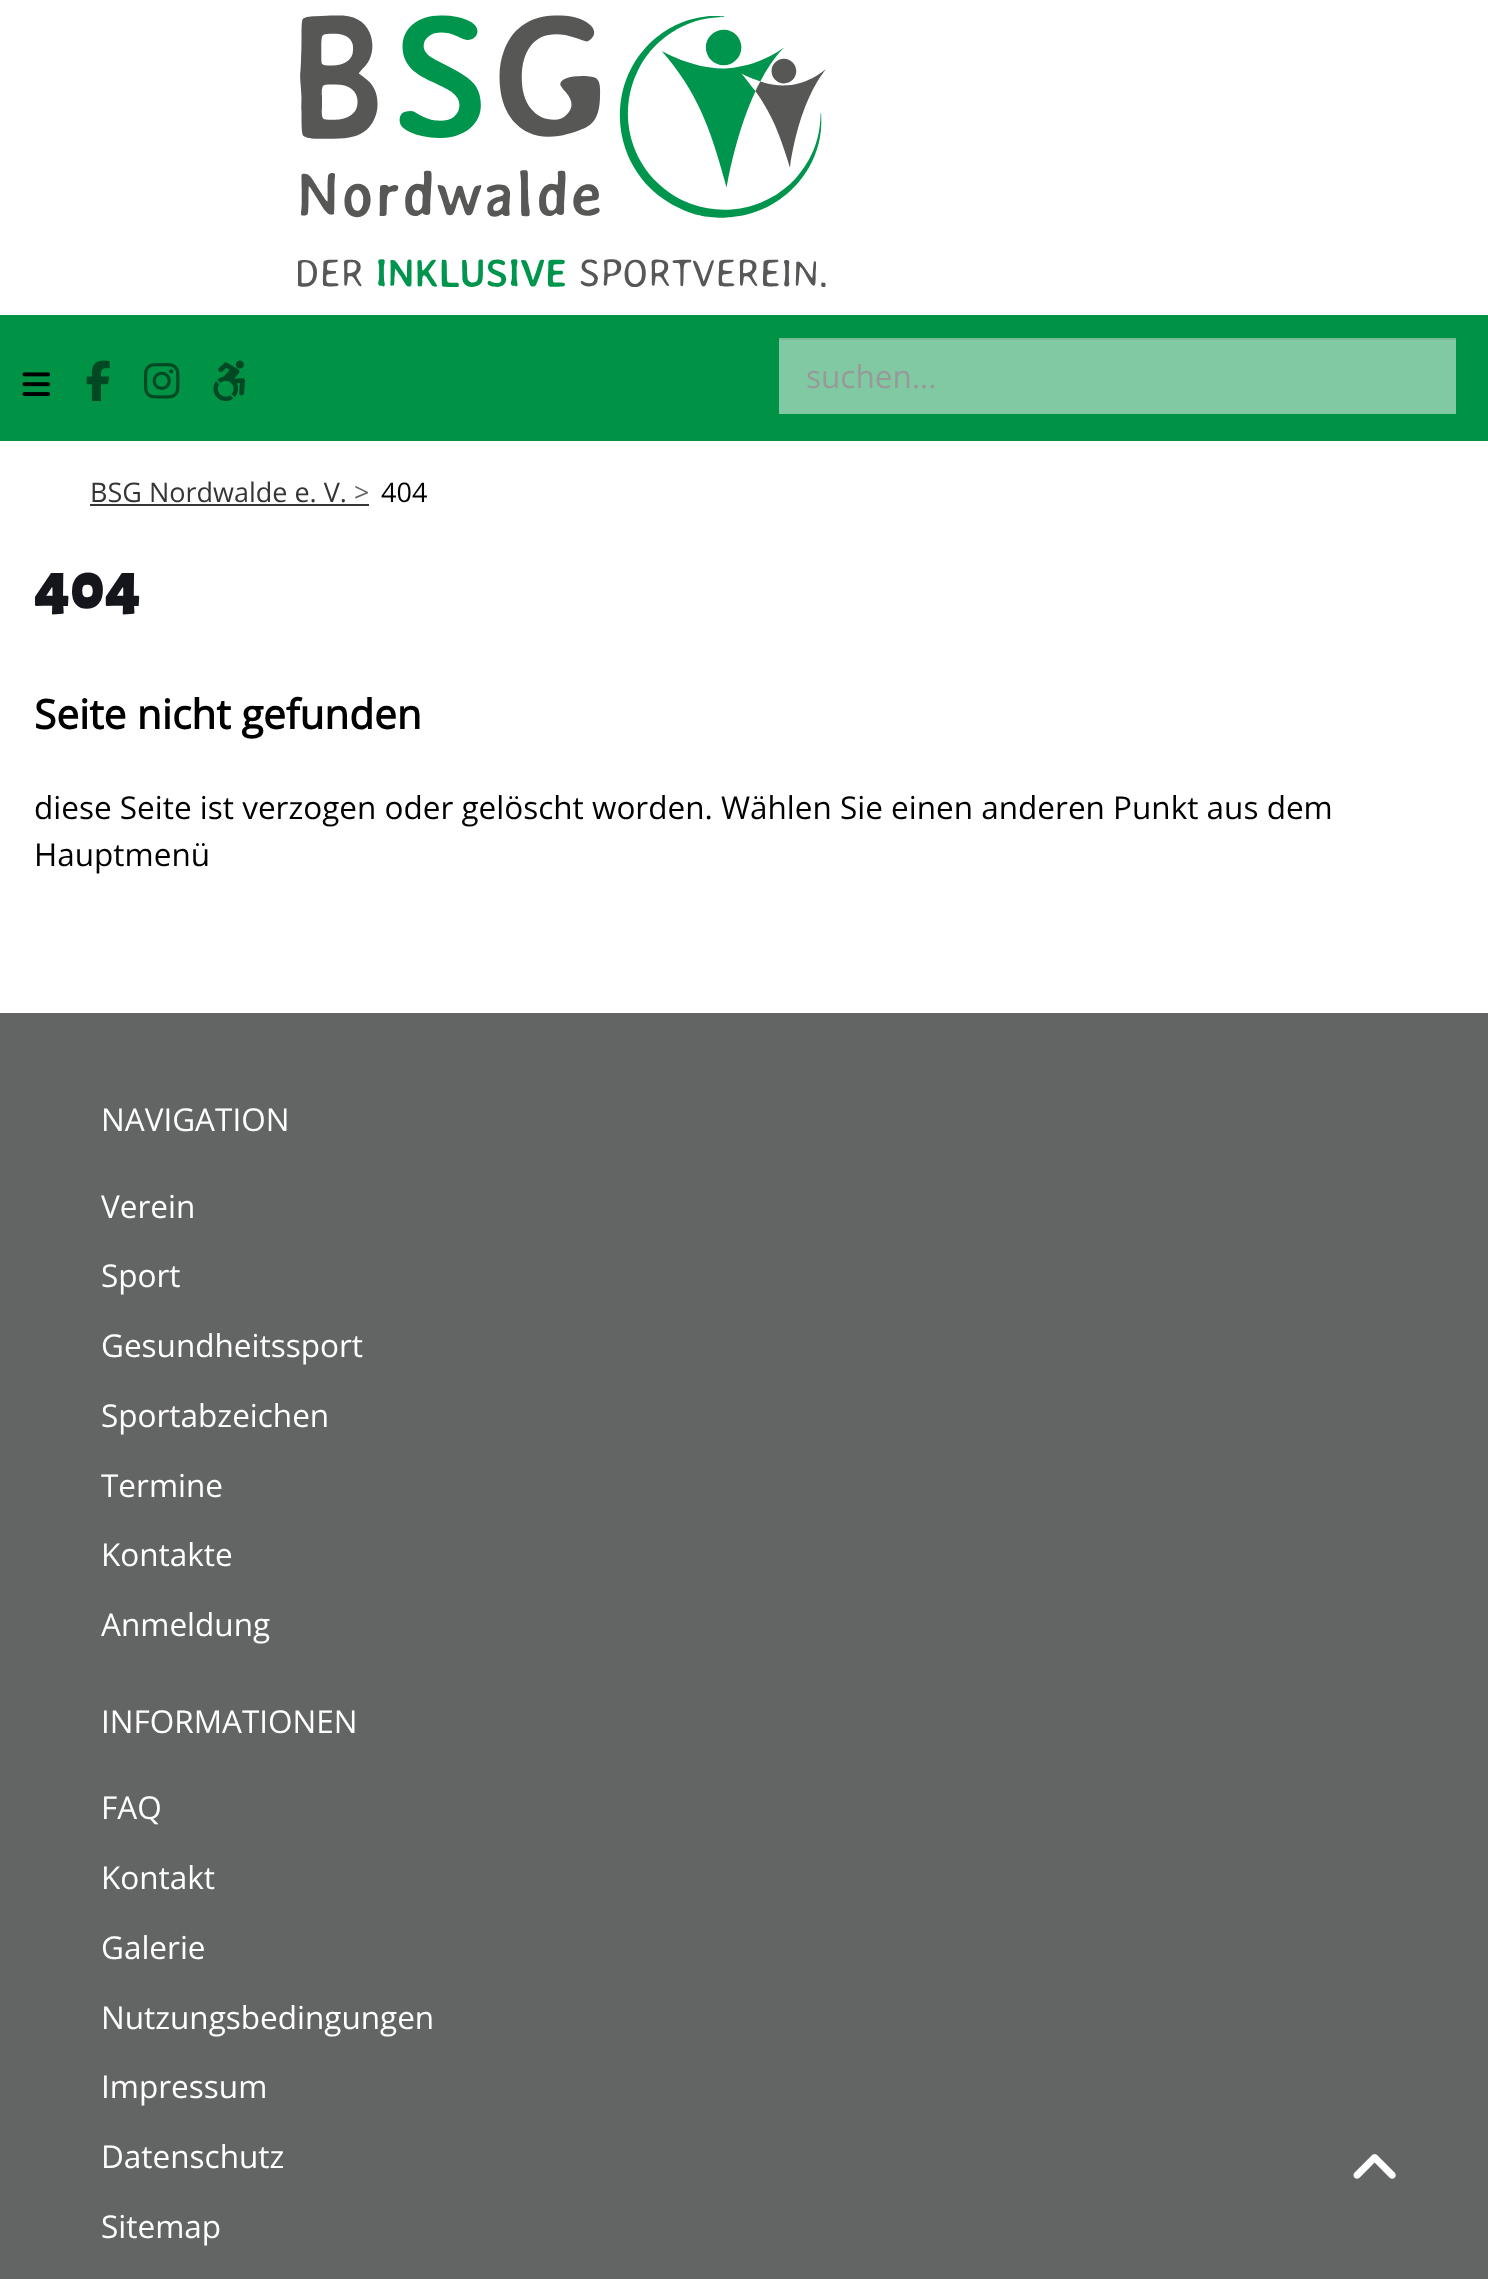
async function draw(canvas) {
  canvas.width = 1488;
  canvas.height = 2279;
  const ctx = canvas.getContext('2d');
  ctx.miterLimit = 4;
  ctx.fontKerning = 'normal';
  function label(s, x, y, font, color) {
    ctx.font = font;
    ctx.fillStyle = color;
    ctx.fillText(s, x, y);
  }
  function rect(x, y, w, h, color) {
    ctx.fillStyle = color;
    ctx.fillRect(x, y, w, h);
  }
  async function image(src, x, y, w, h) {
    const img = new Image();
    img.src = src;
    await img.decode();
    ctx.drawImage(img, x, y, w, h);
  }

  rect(0, 0, 1488, 2279, '#fff');
  await image('assets/img1.png', 298, 15, 529, 272);
  rect(0, 315, 1488, 126, '#009345');
  await image('assets/img2.png', 22, 372, 28, 24);
  await image('assets/img3.png', 86, 360, 24, 42);
  await image('assets/img4.png', 144, 363, 36, 36);
  await image('assets/img5.png', 213, 360, 32, 41);
  rect(779, 340, 677, 74, '#80c9a2');
  rect(779, 338, 677, 2, '#76ba96');
  label('suchen...', 806, 388, '31.5px Open Sans', '#999');
  label('BSG Nordwalde e. V.', 90, 502, '27px Open Sans', '#353535');
  rect(90, 504, 279, 2, '#353535');
  label('>', 354, 502, '27px Open Sans', '#666');
  label('404', 381, 502, '27px Open Sans', '#000');
  label('404', 34, 608, '900 68px Alegreya Sans', '#14161b');
  label('Seite nicht gefunden', 34, 729, 'bold 40.5px Open Sans', '#000');
  label('diese Seite ist verzogen oder gelöscht worden. Wählen Sie einen anderen Punkt aus dem', 34, 819, '31.5px Open Sans', '#000');
  label('Hauptmenü', 34, 866, '31.5px Open Sans', '#000');
  rect(0, 1013, 1488, 1266, '#636564');
  label('NAVIGATION', 101, 1131, '31.5px Open Sans', '#fff');
  label('Verein', 101, 1218, '31.5px Open Sans', '#fff');
  label('Sport', 101, 1287, '31.5px Open Sans', '#fff');
  label('Gesundheitssport', 101, 1357, '31.5px Open Sans', '#fff');
  label('Sportabzeichen', 101, 1427, '31.5px Open Sans', '#fff');
  label('Termine', 101, 1497, '31.5px Open Sans', '#fff');
  label('Kontakte', 101, 1566, '31.5px Open Sans', '#fff');
  label('Anmeldung', 101, 1636, '31.5px Open Sans', '#fff');
  label('INFORMATIONEN', 101, 1733, '31.5px Open Sans', '#fff');
  label('FAQ', 101, 1819, '31.5px Open Sans', '#fff');
  label('Kontakt', 101, 1889, '31.5px Open Sans', '#fff');
  label('Galerie', 101, 1959, '31.5px Open Sans', '#fff');
  label('Nutzungsbedingungen', 101, 2029, '31.5px Open Sans', '#fff');
  label('Impressum', 101, 2098, '31.5px Open Sans', '#fff');
  label('Datenschutz', 101, 2168, '31.5px Open Sans', '#fff');
  label('Sitemap', 101, 2238, '31.5px Open Sans', '#fff');
  await image('assets/img6.png', 1353, 2154, 43, 25);
}

draw(document.querySelector('canvas'));
